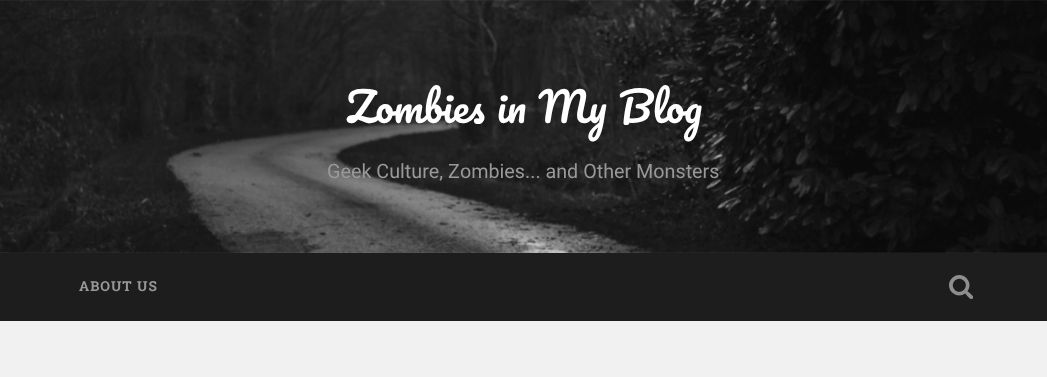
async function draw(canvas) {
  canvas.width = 1047;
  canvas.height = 377;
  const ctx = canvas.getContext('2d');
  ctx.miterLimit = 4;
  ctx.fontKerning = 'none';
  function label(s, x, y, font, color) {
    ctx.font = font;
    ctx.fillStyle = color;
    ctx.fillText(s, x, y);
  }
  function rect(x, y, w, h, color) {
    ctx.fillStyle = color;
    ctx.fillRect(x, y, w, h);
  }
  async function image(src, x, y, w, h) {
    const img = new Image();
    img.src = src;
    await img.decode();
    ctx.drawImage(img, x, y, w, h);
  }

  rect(0, 0, 1047, 377, '#f1f1f1');
  await image('assets/img1.png', 0, 0, 1047, 253);
  ctx.wordSpacing = '1.5px';
  label('Zombies in My Blog', 346, 123, '40.5px Pacifico', '#fff');
  ctx.wordSpacing = '0px';
  label('Geek Culture, Zombies... and Other Monsters', 327, 178, '19.75px Roboto', '#999');
  rect(0, 253, 1047, 68, '#1d1d1d');
  ctx.letterSpacing = '1px';
  label('ABOUT US', 79, 291, 'bold 13.75px Roboto Slab', '#999');
  await image('assets/img2.png', 949, 275, 24, 24);
}

draw(document.querySelector('canvas'));
